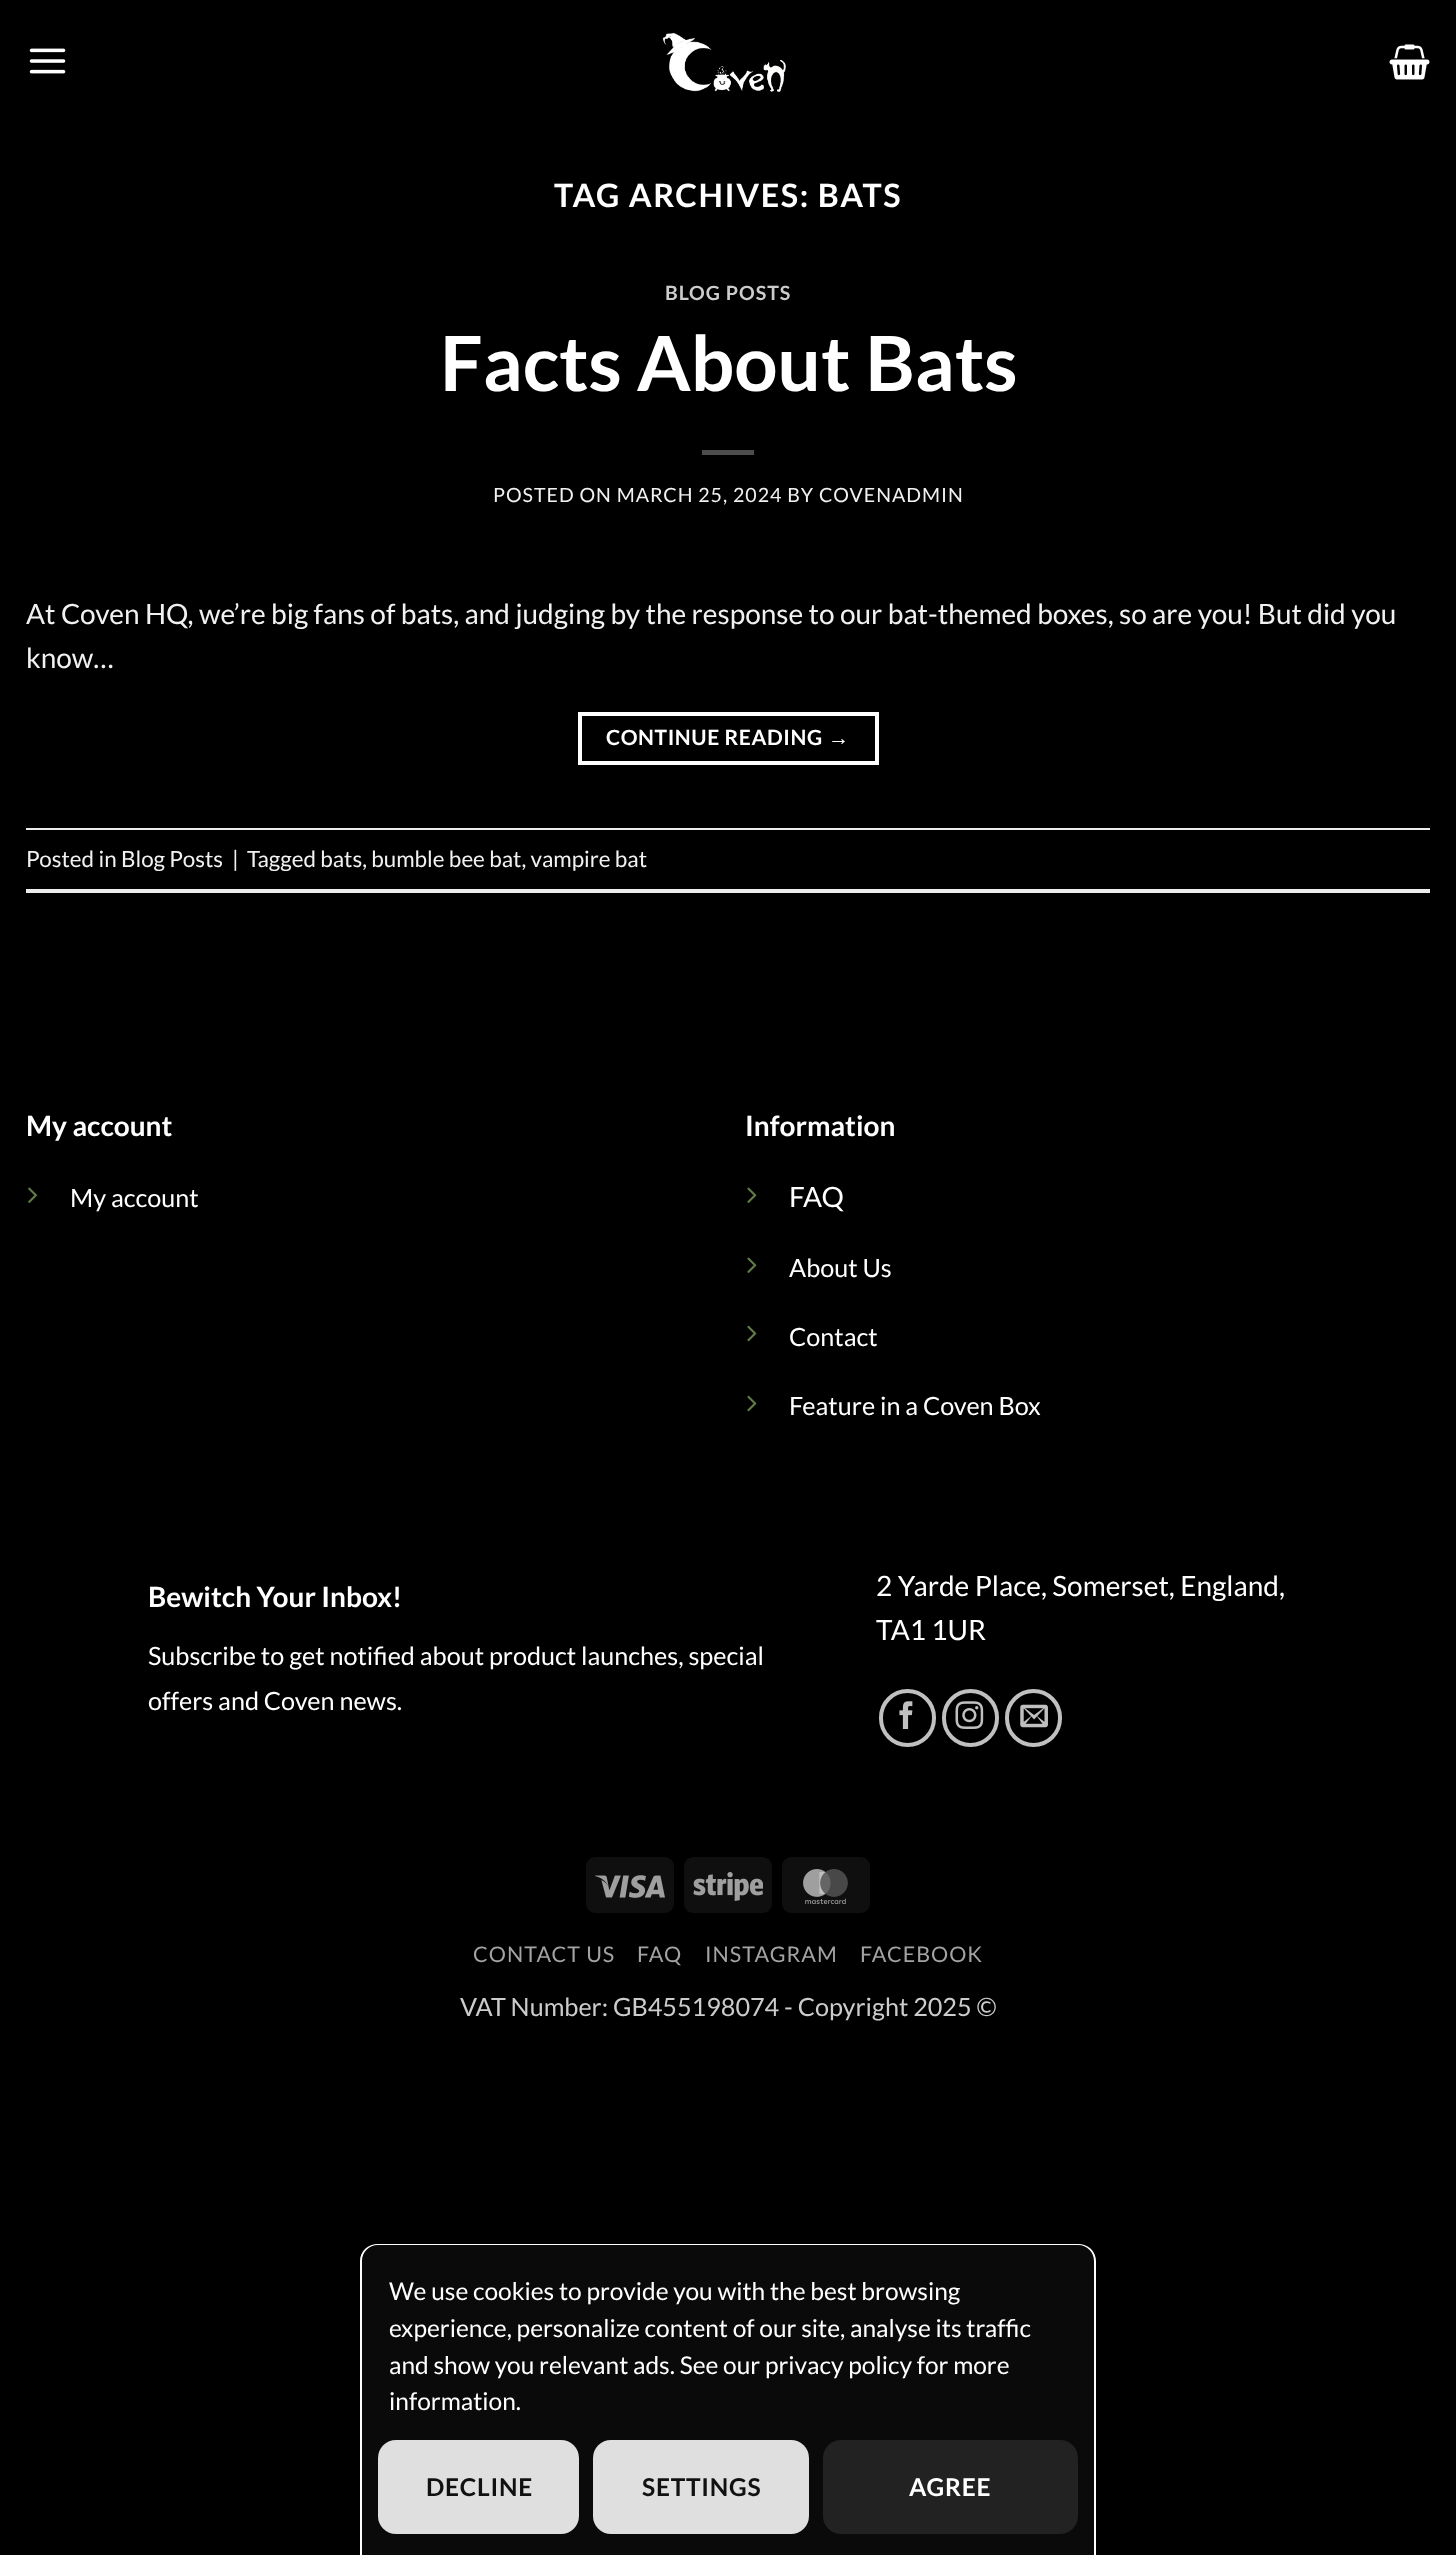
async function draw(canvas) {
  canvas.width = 1456;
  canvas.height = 2555;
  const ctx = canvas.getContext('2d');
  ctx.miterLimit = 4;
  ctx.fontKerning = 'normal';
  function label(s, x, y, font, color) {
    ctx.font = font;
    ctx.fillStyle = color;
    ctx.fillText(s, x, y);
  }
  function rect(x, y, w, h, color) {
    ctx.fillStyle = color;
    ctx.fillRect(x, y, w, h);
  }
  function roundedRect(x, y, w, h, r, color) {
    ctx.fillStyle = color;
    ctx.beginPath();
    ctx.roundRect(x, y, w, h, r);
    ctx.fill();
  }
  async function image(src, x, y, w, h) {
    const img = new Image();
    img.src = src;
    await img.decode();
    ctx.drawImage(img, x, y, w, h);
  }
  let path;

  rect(0, 0, 1456, 2555, '#000');
  await image('assets/img1.png', 29, 48, 37, 26);
  await image('assets/img2.png', 662, 33, 124, 59);
  await image('assets/img3.png', 1389, 44, 41, 36);
  ctx.letterSpacing = '1.6px';
  label('TAG ARCHIVES: BATS', 554, 207, 'bold 32.25px Lato', '#fff');
  ctx.letterSpacing = '1px';
  label('BLOG POSTS', 665, 300, 'bold 19.6px Lato', '#ccc');
  ctx.letterSpacing = '0px';
  label('Facts About Bats', 440, 391, 'bold 76.25px Lato', '#fff');
  rect(702, 450, 52, 5, '#4d4d4d');
  ctx.letterSpacing = '1px';
  label('POSTED ON MARCH 25, 2024 BY COVENADMIN', 493, 502, '19.6px Lato', '#f1f1f1');
  ctx.letterSpacing = '0px';
  label('At Coven HQ, we’re big fans of bats, and judging by the response to our bat-themed boxes, so are you! But did you', 26, 624, '28px Lato', '#f1f1f1');
  label('know…', 26, 668, '28px Lato', '#f1f1f1');
  ctx.strokeStyle = '#fff';
  ctx.lineWidth = 4;
  ctx.strokeRect(580, 714, 297, 49);
  ctx.letterSpacing = '0.6px';
  label('CONTINUE READING', 606, 745, 'bold 21px Lato', '#fff');
  label('→', 828, 745, 'bold 21px Liberation Sans', '#fff');
  rect(26, 828, 1404, 2, '#ececec');
  rect(26, 889, 1404, 4, '#ececec');
  ctx.letterSpacing = '0px';
  label('Posted in Blog Posts', 26, 867, '22.4px Lato', '#f1f1f1');
  label('|', 232, 867, '22.4px Lato', '#f1f1f1');
  label('Tagged bats, bumble bee bat, vampire bat', 247, 867, '22.4px Lato', '#f1f1f1');
  label('My account', 26, 1136, 'bold 28px Lato', '#fff');
  await image('assets/img4.png', 28, 1187, 10, 16);
  label('My account', 70, 1207, '25.2px Lato', '#fff');
  label('Information', 745, 1136, 'bold 28px Lato', '#fff');
  await image('assets/img5.png', 747, 1187, 10, 16);
  label('FAQ', 789, 1207, '28px Lato', '#fff');
  await image('assets/img5.png', 747, 1257, 10, 16);
  label('About Us', 789, 1277, '25.2px Lato', '#fff');
  await image('assets/img6.png', 747, 1325, 10, 17);
  label('Contact', 789, 1346, '25.2px Lato', '#fff');
  await image('assets/img6.png', 747, 1395, 10, 17);
  label('Feature in a Coven Box', 789, 1415, '25.2px Lato', '#fff');
  label('Bewitch Your Inbox!', 148, 1607, 'bold 28px Lato', '#fff');
  label('Subscribe to get notified about product launches, special', 148, 1665, '25.2px Lato', '#fff');
  label('offers and Coven news.', 148, 1710, '25.2px Lato', '#fff');
  label('2 Yarde Place, Somerset, England,', 876, 1596, '28px Lato', '#fff');
  label('TA1 1UR', 876, 1640, '28px Lato', '#fff');
  ctx.beginPath();
  ctx.roundRect(881, 1691, 53, 54, 26.5);
  ctx.strokeStyle = '#c0c0c0';
  ctx.stroke();
  await image('assets/img7.png', 899, 1701, 14, 28);
  ctx.beginPath();
  ctx.roundRect(944, 1691, 53, 54, 26.5);
  ctx.stroke();
  await image('assets/img8.png', 955, 1701, 29, 28);
  ctx.beginPath();
  ctx.roundRect(1007, 1691, 53, 54, 26.5);
  ctx.stroke();
  await image('assets/img9.png', 1020, 1704, 28, 24);
  roundedRect(586, 1857, 88, 56, 9, '#0f0f0f');
  await image('assets/img10.png', 595, 1875, 70, 23);
  roundedRect(684, 1857, 88, 56, 9, '#0f0f0f');
  await image('assets/img11.png', 693, 1872, 70, 29);
  roundedRect(782, 1857, 88, 56, 9, '#0f0f0f');
  await image('assets/img12.png', 803, 1869, 45, 35);
  ctx.letterSpacing = '1px';
  label('CONTACT US', 473, 1962, '21.5px Lato', '#a3a3a3');
  label('FAQ', 637, 1962, '21.5px Lato', '#a3a3a3');
  label('INSTAGRAM', 705, 1962, '21.5px Lato', '#a3a3a3');
  label('FACEBOOK', 860, 1962, '21.5px Lato', '#a3a3a3');
  ctx.letterSpacing = '0px';
  label('VAT Number: GB455198074 - Copyright 2025 ©', 460, 2016, '25.2px Lato', '#ccc');
  ctx.fillStyle = '#0a0a0a';
  ctx.beginPath();
  ctx.roundRect(362, 2245, 732, 310, [16, 16, 0, 0]);
  ctx.fill();
  ctx.fillStyle = '#fff';
  path = new Path2D('M378 2244H1078C1088 2244 1096 2251 1096 2261V2555H360V2261C360 2251 368 2244 378 2244ZM378 2245H1078C1087 2245 1094 2252 1094 2261V2555H362V2261C362 2252 369 2245 378 2245Z');
  ctx.fill(path, 'evenodd');
  label('We use cookies to provide you with the best browsing', 389, 2300, '24.5px Lato', '#fff');
  label('experience, personalize content of our site, analyse its traffic', 389, 2337, '24.5px Lato', '#fff');
  label('and show you relevant ads. See our privacy policy for more', 389, 2374, '24.5px Lato', '#fff');
  label('information.', 389, 2410, '24.5px Lato', '#fff');
  roundedRect(378, 2440, 201, 94, 18, '#dfdfdf');
  ctx.letterSpacing = '0.75px';
  label('DECLINE', 426, 2496, 'bold 24.5px Lato', '#111');
  roundedRect(593, 2440, 216, 94, 18, '#dfdfdf');
  label('SETTINGS', 642, 2496, 'bold 24.5px Lato', '#111');
  roundedRect(823, 2440, 255, 94, 18, '#222');
  label('AGREE', 909, 2496, 'bold 24.5px Lato', '#fff');
}

draw(document.querySelector('canvas'));
